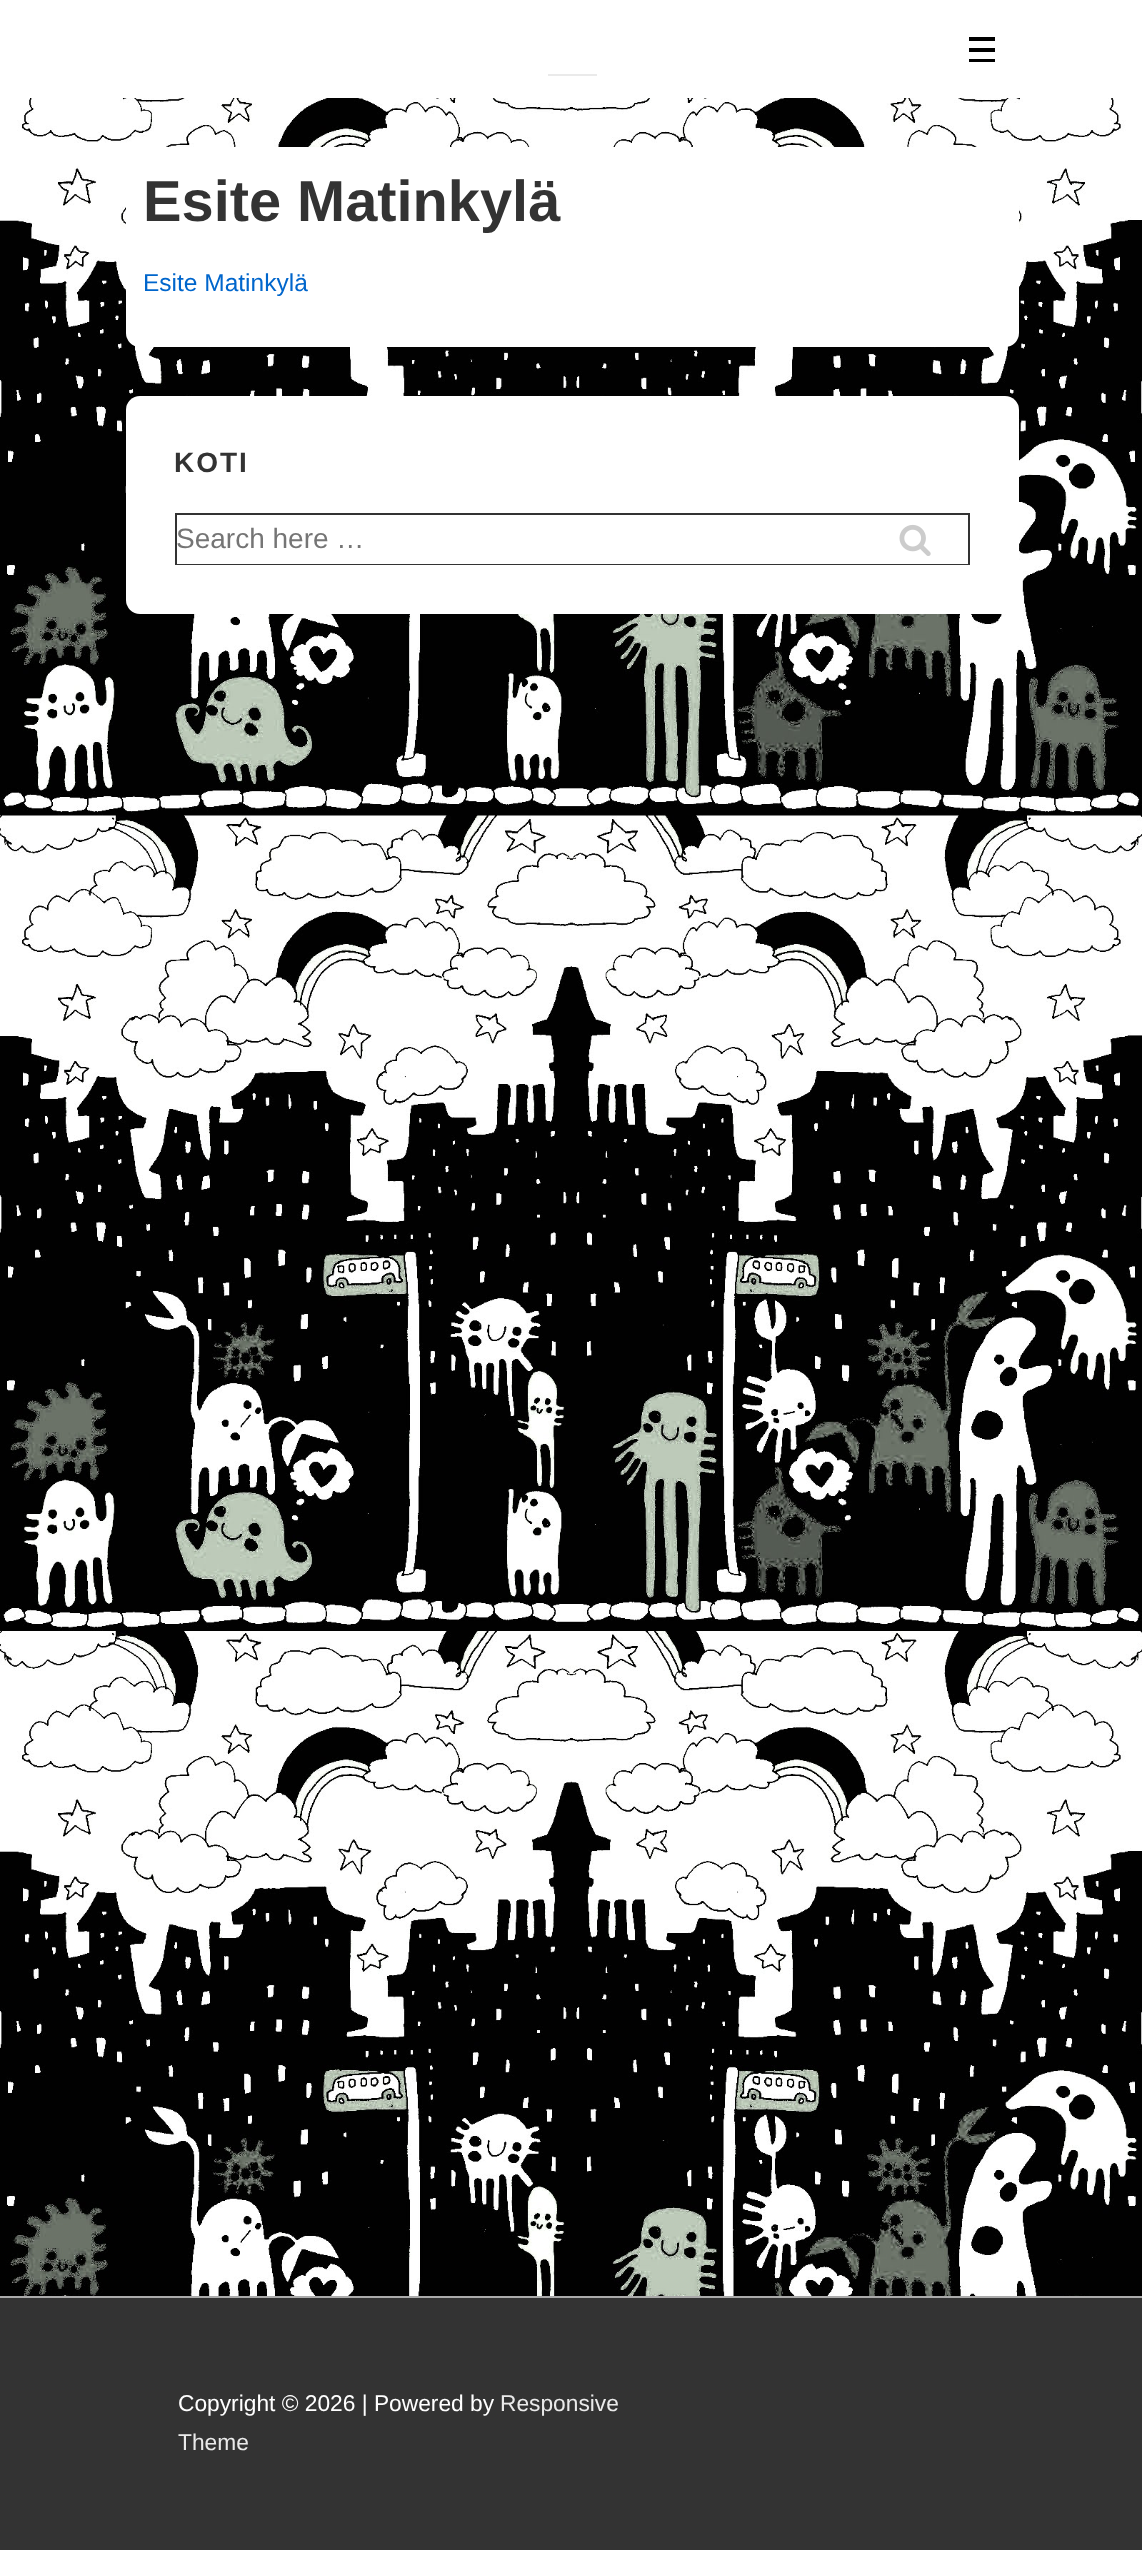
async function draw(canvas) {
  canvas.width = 1142;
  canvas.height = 2550;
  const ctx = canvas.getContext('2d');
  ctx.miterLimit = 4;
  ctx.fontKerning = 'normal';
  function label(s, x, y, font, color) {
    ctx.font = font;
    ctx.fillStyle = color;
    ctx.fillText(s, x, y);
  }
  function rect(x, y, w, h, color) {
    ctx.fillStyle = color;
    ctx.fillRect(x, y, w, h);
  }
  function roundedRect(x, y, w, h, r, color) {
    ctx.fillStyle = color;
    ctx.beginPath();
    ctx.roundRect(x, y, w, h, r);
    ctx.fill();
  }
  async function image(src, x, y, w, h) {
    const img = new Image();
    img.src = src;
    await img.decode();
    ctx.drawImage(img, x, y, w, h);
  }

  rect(0, 0, 1142, 2550, '#fff');
  await image('assets/img1.png', 0, 98, 1142, 2198);
  rect(969, 37, 26, 4, '#000');
  rect(969, 48, 26, 4, '#000');
  rect(969, 59, 26, 3, '#000');
  rect(548, 74, 49, 2, '#eaeaea');
  roundedRect(126, 147, 893, 200, 14, '#fff');
  label('Esite Matinkylä', 143, 221, 'bold 57.75px Liberation Sans', '#333');
  label('Esite Matinkylä', 143, 291, '24.5px Liberation Sans', '#06c');
  roundedRect(126, 396, 893, 218, 14, '#fff');
  ctx.letterSpacing = '2px';
  label('KOTI', 174, 472, 'bold 28px Liberation Sans', '#333');
  ctx.strokeStyle = '#333';
  ctx.lineWidth = 2;
  ctx.strokeRect(176, 514, 793, 50);
  rect(177, 563, 791, 1, '#fff');
  ctx.letterSpacing = '0px';
  label('Search here …', 176, 548, '28px Liberation Sans', '#757575');
  await image('assets/img2.png', 899, 524, 32, 32);
  rect(0, 2298, 1142, 252, '#333');
  rect(0, 2296, 1142, 2, '#aaa');
  label('Copyright © 2026 | Powered by', 178, 2411, '22.75px Liberation Sans', '#fff');
  label('Responsive', 500, 2411, '22.75px Liberation Sans', '#eaeaea');
  label('Theme', 178, 2450, '22.75px Liberation Sans', '#eaeaea');
}

draw(document.querySelector('canvas'));
